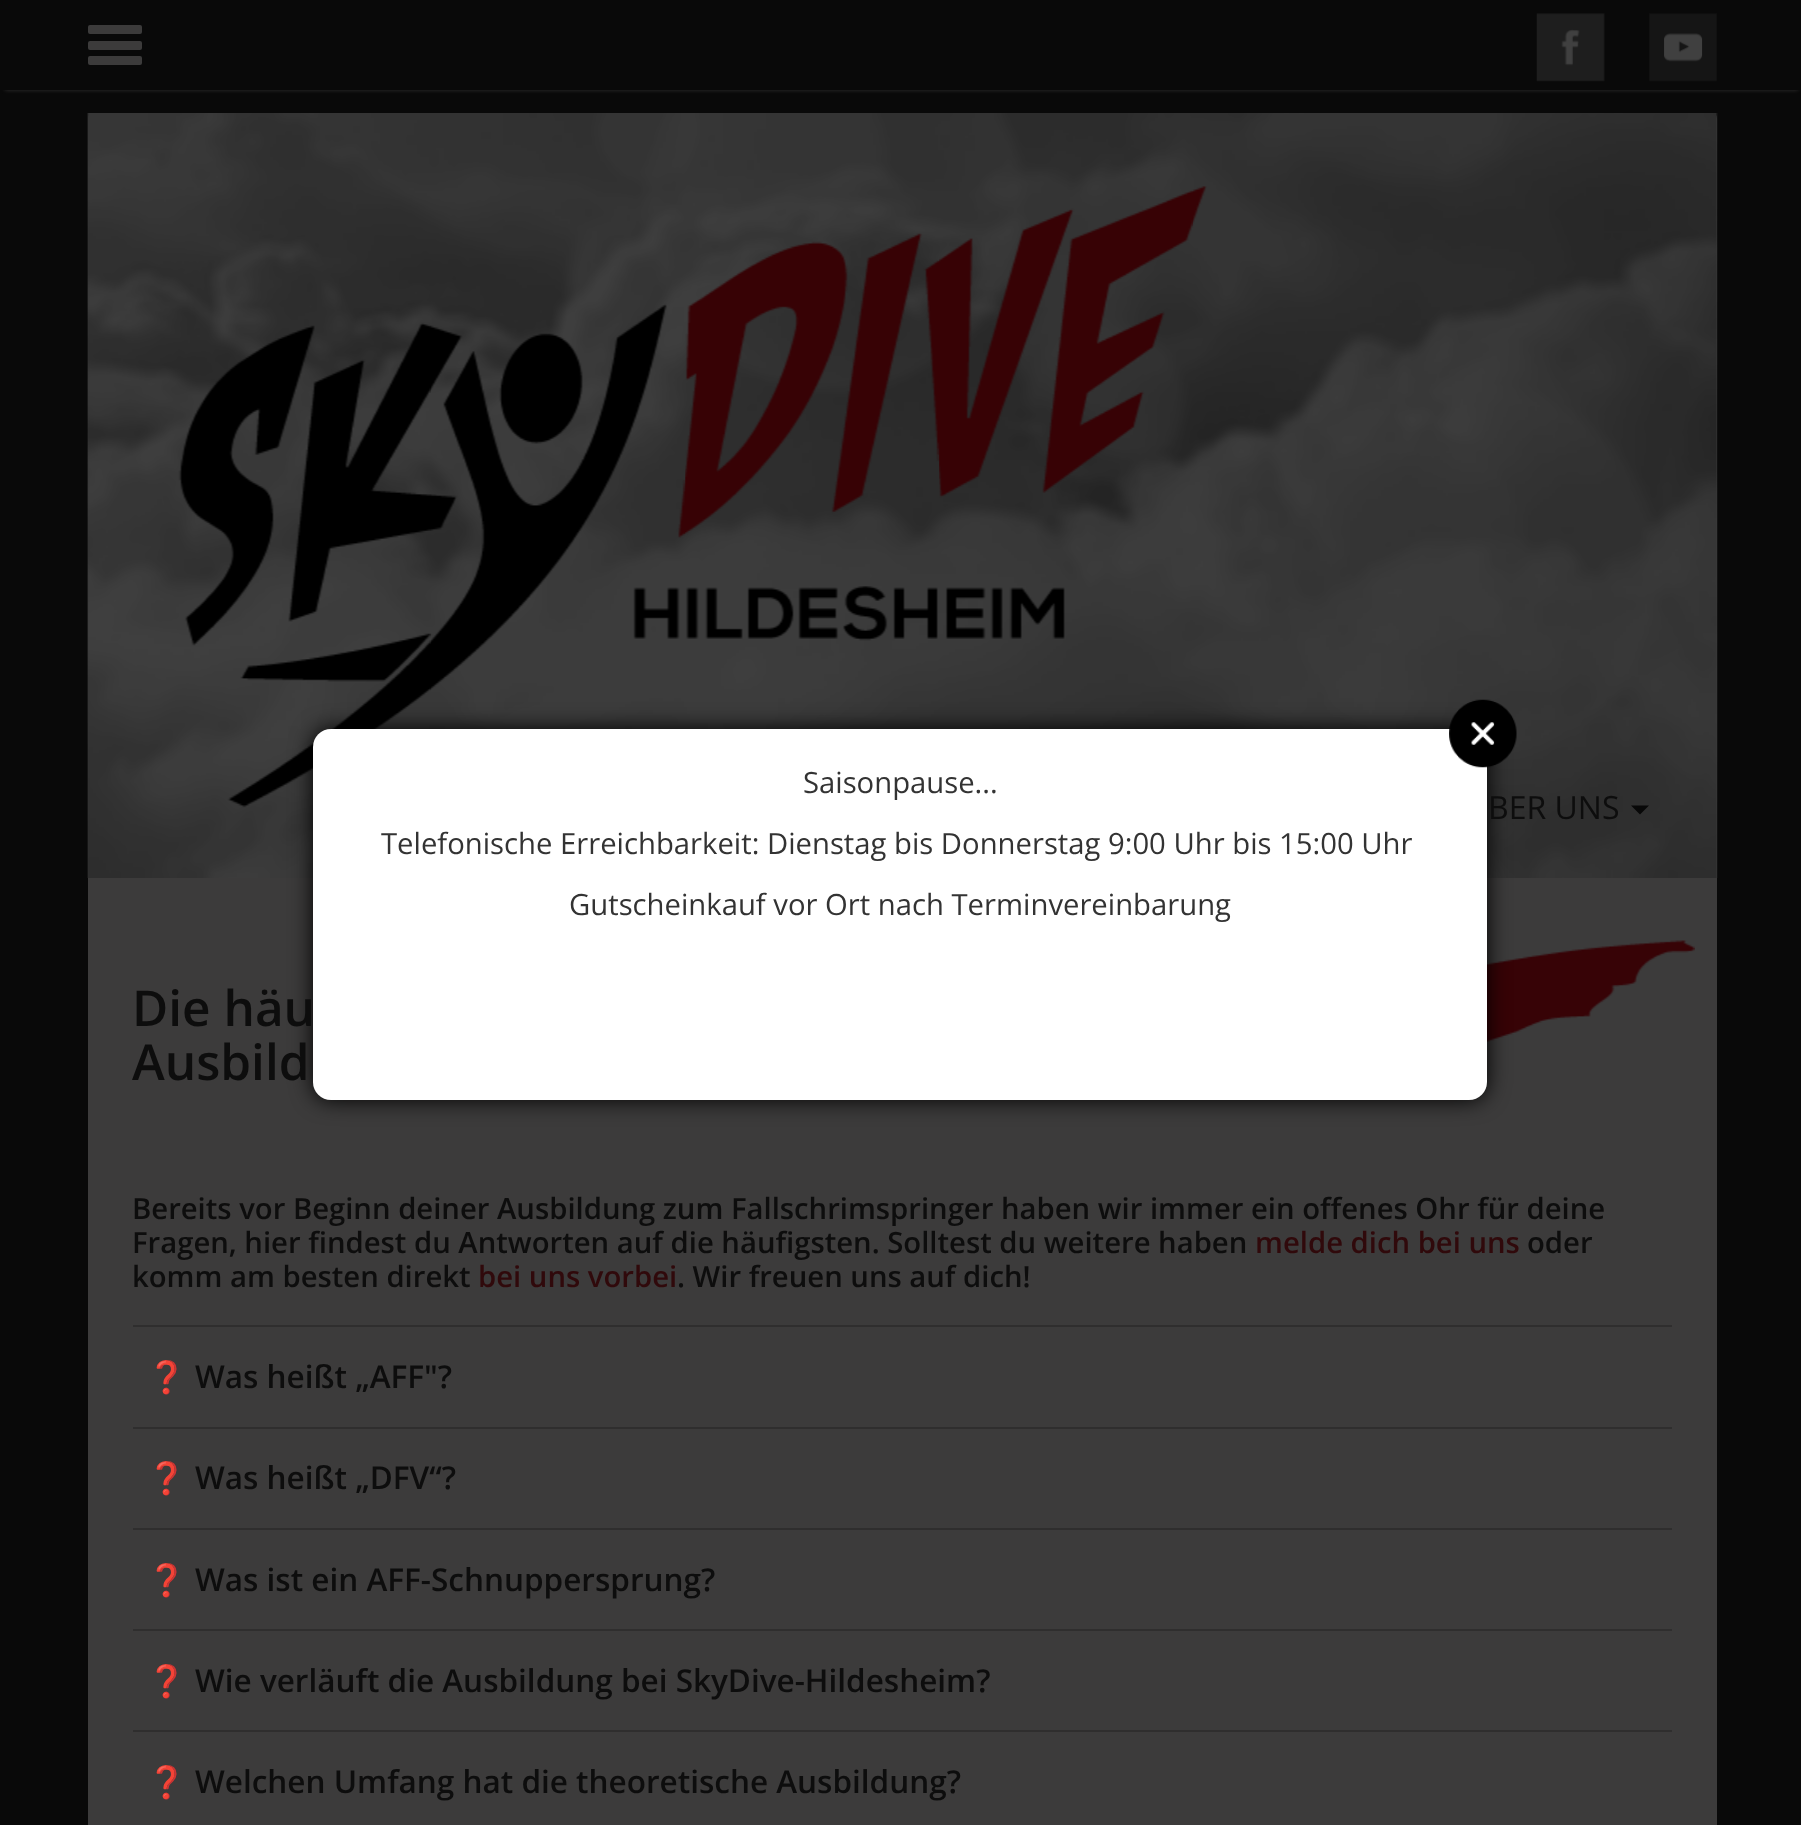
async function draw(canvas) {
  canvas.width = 1801;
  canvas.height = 1825;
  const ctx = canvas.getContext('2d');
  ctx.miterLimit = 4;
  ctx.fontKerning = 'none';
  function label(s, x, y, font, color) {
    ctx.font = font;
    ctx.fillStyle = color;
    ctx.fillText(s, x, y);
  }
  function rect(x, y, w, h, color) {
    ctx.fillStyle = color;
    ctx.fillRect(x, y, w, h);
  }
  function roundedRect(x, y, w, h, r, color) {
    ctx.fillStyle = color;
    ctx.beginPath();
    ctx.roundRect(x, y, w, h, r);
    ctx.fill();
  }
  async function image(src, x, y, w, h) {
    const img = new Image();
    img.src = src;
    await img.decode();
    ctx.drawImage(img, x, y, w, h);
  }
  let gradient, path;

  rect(0, 0, 1801, 1825, '#fff');
  gradient = ctx.createLinearGradient(901, 0, 901, 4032);
  gradient.addColorStop(0.8, '#090909');
  gradient.addColorStop(1, '#0b0b0b');
  ctx.fillStyle = gradient;
  ctx.fillRect(0, 0, 1801, 1825);
  ctx.save();
  ctx.beginPath();
  ctx.rect(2, 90, 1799, 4);
  ctx.clip();
  ctx.fillStyle = '#3c3b3bd1';
  ctx.filter = 'blur(2px)';
  ctx.beginPath();
  ctx.rect(5, 9, 1793, 81);
  ctx.fill();
  ctx.filter = 'none';
  ctx.restore();
  roundedRect(88, 25, 54, 9, 2, '#3c3b3b');
  roundedRect(88, 41, 54, 9, 2, '#3c3b3b');
  roundedRect(88, 56, 54, 9, 2, '#3c3b3b');
  await image('assets/img1.png', 1536, 13, 69, 69);
  await image('assets/img2.png', 1649, 13, 68, 69);
  roundedRect(88, 113, 1629, 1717, 5, '#3c3b3b');
  await image('assets/img4.png', 87, 113, 1631, 765);
  await image('assets/img5.png', 178, 186, 1029, 622);
  await image('assets/img6.png', 1487, 940, 208, 102);
  ctx.fillStyle = '#000';
  ctx.filter = 'blur(11px)';
  ctx.beginPath();
  ctx.roundRect(313, 729, 1174, 371, 18);
  ctx.fill();
  ctx.filter = 'none';
  roundedRect(313, 729, 1174, 371, 18, '#fff');
  await image('assets/img3.png', 1449, 699, 68, 69);
  label('Saisonpause...', 803, 793, '29.25px Open Sans', '#333');
  label('Telefonische Erreichbarkeit: Dienstag bis Donnerstag 9:00 Uhr bis 15:00 Uhr', 381, 854, '29.25px Open Sans', '#333');
  label('Gutscheinkauf vor Ort nach Terminvereinbarung', 569, 915, '29.25px Open Sans', '#333');
  label('BER UNS', 1488, 819, '32px Open Sans', '#0d0d0d');
  ctx.fillStyle = '#080808';
  path = new Path2D('M1631 805.5H1649L1640 814.5Z');
  ctx.fill(path);
  label('Die häu', 132, 1026, '600 49.5px Open Sans', '#0d0d0d');
  label('Ausbild', 132, 1080, '600 49.5px Open Sans', '#0d0d0d');
  label('Bereits vor Beginn deiner Ausbildung zum Fallschrimspringer haben wir immer ein offenes Ohr für deine', 132, 1219, '600 29.25px Open Sans', '#0d0d0d');
  label('Fragen, hier findest du Antworten auf die häufigsten. Solltest du weitere haben', 132, 1253, '600 29.25px Open Sans', '#0d0d0d');
  label('melde dich bei uns', 1255, 1253, '600 29.25px Open Sans', '#30090b');
  label('oder', 1527, 1253, '600 29.25px Open Sans', '#0d0d0d');
  label('komm am besten direkt', 132, 1287, '600 29.25px Open Sans', '#0d0d0d');
  label('bei uns vorbei', 478, 1287, '600 29.25px Open Sans', '#30090b');
  label('. Wir freuen uns auf dich!', 677, 1287, '600 29.25px Open Sans', '#0d0d0d');
  rect(133, 1325, 1539, 2, '#2f2e2e');
  label('❓', 147, 1388, '31.5px Noto Color Emoji', '#0d0d0d');
  label('Was heißt „AFF"?', 195, 1388, '600 31.5px Open Sans', '#0d0d0d');
  rect(133, 1427, 1539, 2, '#2f2e2e');
  label('❓', 147, 1489, '31.5px Noto Color Emoji', '#0d0d0d');
  label('Was heißt „DFV“?', 195, 1489, '600 31.5px Open Sans', '#0d0d0d');
  rect(133, 1528, 1539, 2, '#2f2e2e');
  label('❓', 147, 1591, '31.5px Noto Color Emoji', '#0d0d0d');
  label('Was ist ein AFF-Schnuppersprung?', 195, 1591, '600 31.5px Open Sans', '#0d0d0d');
  rect(133, 1629, 1539, 2, '#2f2e2e');
  label('❓', 147, 1692, '31.5px Noto Color Emoji', '#0d0d0d');
  label('Wie verläuft die Ausbildung bei SkyDive-Hildesheim?', 195, 1692, '600 31.5px Open Sans', '#0d0d0d');
  rect(133, 1730, 1539, 2, '#2f2e2e');
  label('❓', 147, 1793, '31.5px Noto Color Emoji', '#0d0d0d');
  label('Welchen Umfang hat die theoretische Ausbildung?', 195, 1793, '600 31.5px Open Sans', '#0d0d0d');
}

draw(document.querySelector('canvas'));
